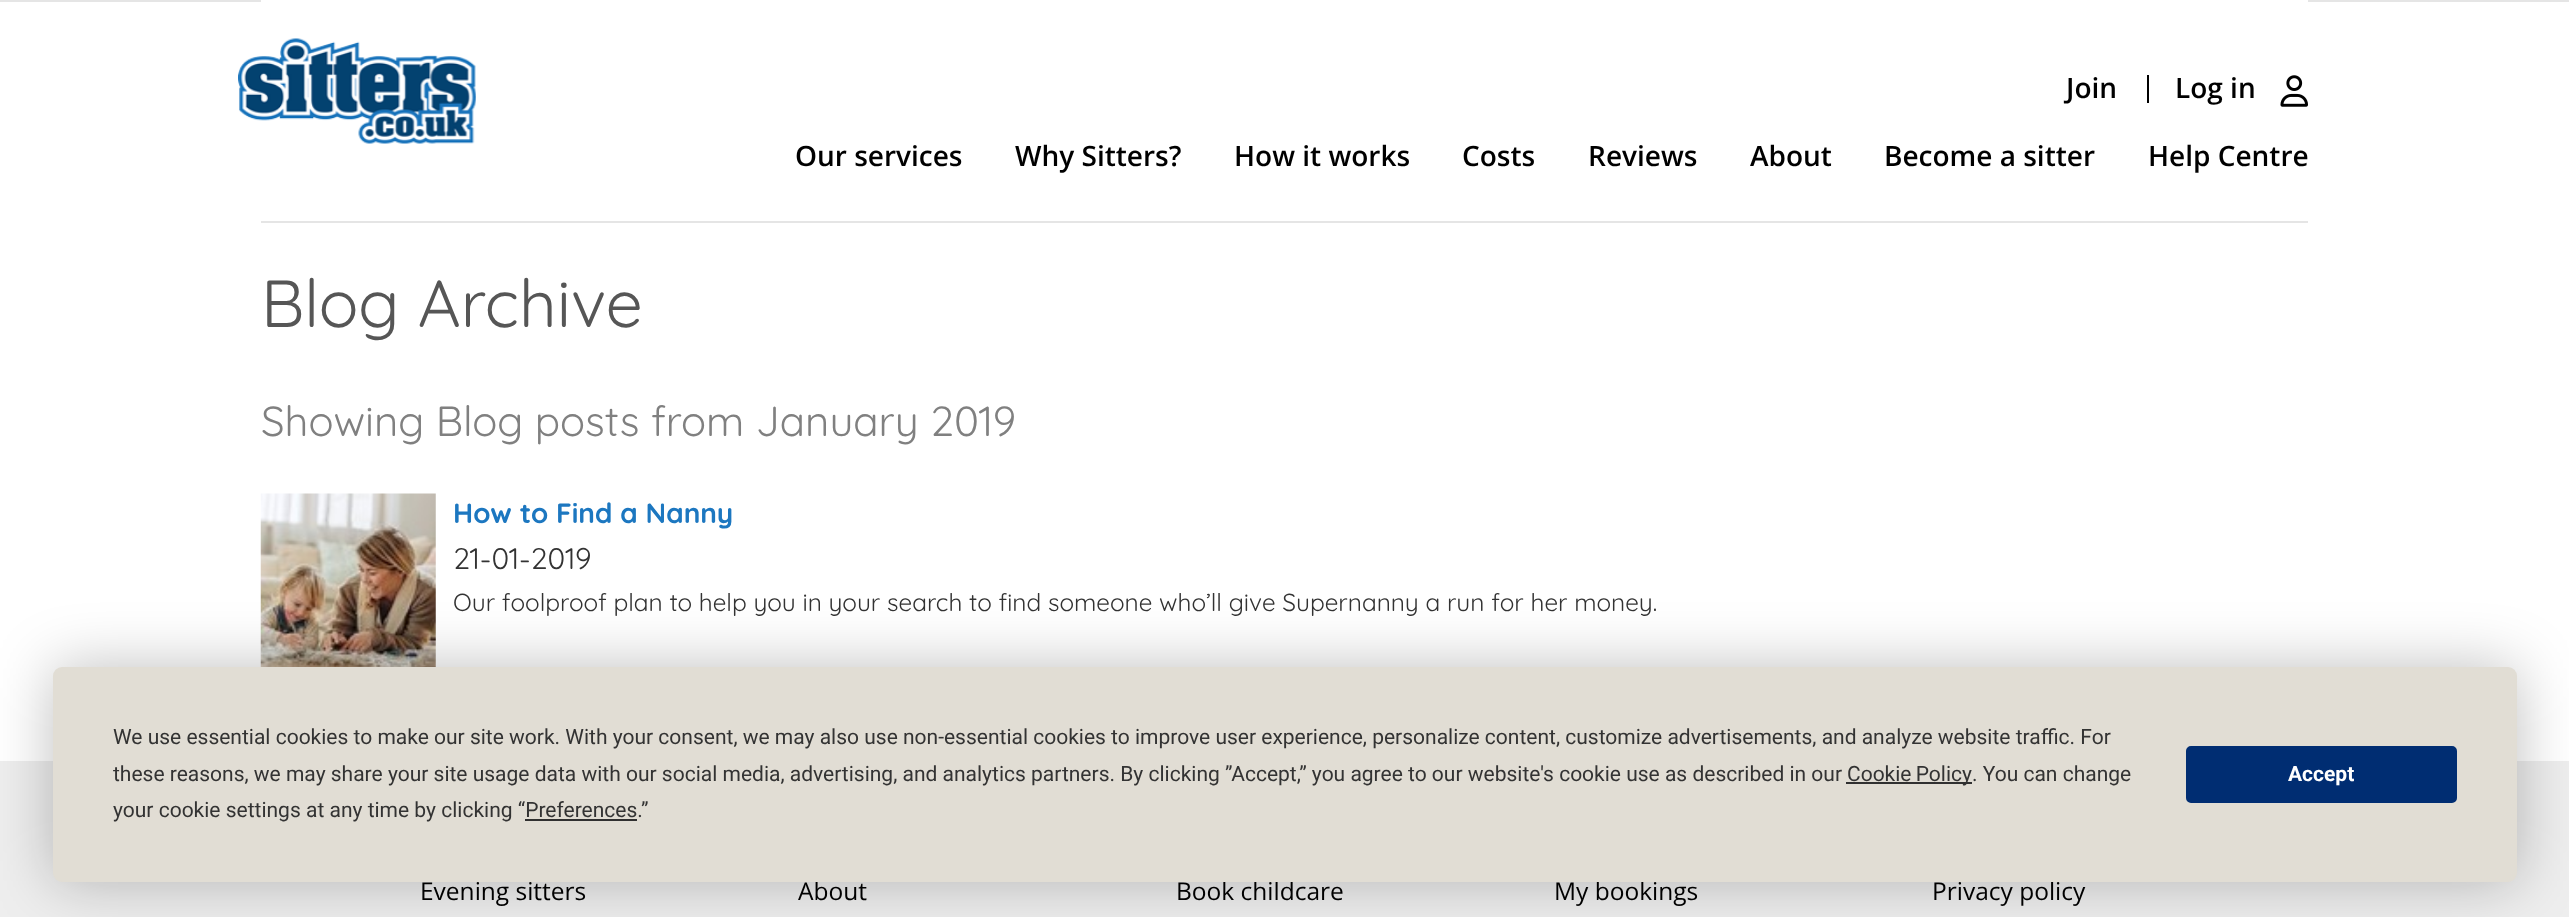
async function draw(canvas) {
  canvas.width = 2569;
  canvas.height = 917;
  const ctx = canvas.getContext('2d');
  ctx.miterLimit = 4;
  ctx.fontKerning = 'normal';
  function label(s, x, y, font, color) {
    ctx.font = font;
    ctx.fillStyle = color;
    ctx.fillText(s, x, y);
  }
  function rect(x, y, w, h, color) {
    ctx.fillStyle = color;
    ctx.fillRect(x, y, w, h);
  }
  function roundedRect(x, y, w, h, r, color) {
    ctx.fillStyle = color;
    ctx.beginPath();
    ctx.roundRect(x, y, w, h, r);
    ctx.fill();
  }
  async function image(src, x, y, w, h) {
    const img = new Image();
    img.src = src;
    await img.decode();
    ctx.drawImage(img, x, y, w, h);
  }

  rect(0, 0, 2569, 917, '#fff');
  rect(0, 0, 2569, 2, '#e5e5e5');
  rect(261, 0, 2047, 2, '#fff');
  rect(261, 221, 2047, 2, '#e5e5e5');
  await image('assets/img1.png', 238, 38, 238, 106);
  label('Join', 2066, 98, '600 28px Open Sans', '#000');
  rect(2147, 75, 2, 28, '#000');
  label('Log in', 2175, 98, '600 28px Open Sans', '#000');
  await image('assets/img2.png', 2280, 75, 28, 32);
  label('Our services', 795, 166, '600 28px Open Sans', '#000');
  label('Why Sitters?', 1015, 166, '600 28px Open Sans', '#000');
  label('How it works', 1234, 166, '600 28px Open Sans', '#000');
  label('Costs', 1462, 166, '600 28px Open Sans', '#000');
  label('Reviews', 1588, 166, '600 28px Open Sans', '#000');
  label('About', 1750, 166, '600 28px Open Sans', '#000');
  label('Become a sitter', 1884, 166, '600 28px Open Sans', '#000');
  label('Help Centre', 2148, 166, '600 28px Open Sans', '#000');
  label('Blog Archive', 261, 327, '66.5px Quicksand', '#565656');
  label('Showing Blog posts from January 2019', 261, 436, '42px Quicksand', '#808080');
  await image('assets/img3.png', 260, 493, 176, 174);
  label('How to Find a Nanny', 453, 523, 'bold 28px Quicksand', '#1c77c0');
  label('21-01-2019', 453, 569, '29.75px Quicksand', '#333');
  label('Our foolproof plan to help you in your search to find someone who’ll give Supernanny a run for her money.', 453, 611, '24.5px Quicksand', '#333');
  rect(0, 761, 2569, 156, '#eee');
  label('Evening sitters', 420, 900, '24.5px Open Sans', '#000');
  label('About', 798, 900, '24.5px Open Sans', '#000');
  label('Book childcare', 1176, 900, '24.5px Open Sans', '#000');
  label('My bookings', 1554, 900, '24.5px Open Sans', '#000');
  label('Privacy policy', 1932, 900, '24.5px Open Sans', '#000');
  ctx.fillStyle = '#00000040';
  ctx.filter = 'blur(30.5px)';
  ctx.beginPath();
  ctx.roundRect(53, 667, 2464, 215, 9);
  ctx.fill();
  ctx.filter = 'none';
  roundedRect(53, 667, 2464, 215, 9, '#e1ddd4');
  label('We use essential cookies to make our site work. With your consent, we may also use non-essential cookies to improve user experience, personalize content, customize advertisements, and analyze website traffic. For', 113, 744, '21px Roboto', '#333');
  label('these reasons, we may share your site usage data with our social media, advertising, and analytics partners. By clicking ”Accept,” you agree to our website\'s cookie use as described in our', 113, 781, '21px Roboto', '#333');
  rect(1846, 782, 126, 2, '#303030');
  ctx.wordSpacing = '-1px';
  label('Cookie Policy', 1847, 781, '21px Roboto', '#333');
  ctx.wordSpacing = '0px';
  label('. You can change', 1972, 781, '21px Roboto', '#333');
  label('your cookie settings at any time by clicking “Preferences.”', 113, 817, '21px Roboto', '#333');
  rect(525, 819, 112, 2, '#303030');
  ctx.fillStyle = '#002d72';
  ctx.beginPath();
  ctx.roundRect(2187, 747, 269, 55, 4);
  ctx.fill();
  ctx.strokeStyle = '#002d72';
  ctx.lineWidth = 2;
  ctx.stroke();
  label('Accept', 2288, 781, 'bold 21px Roboto', '#fff');
}

draw(document.querySelector('canvas'));
